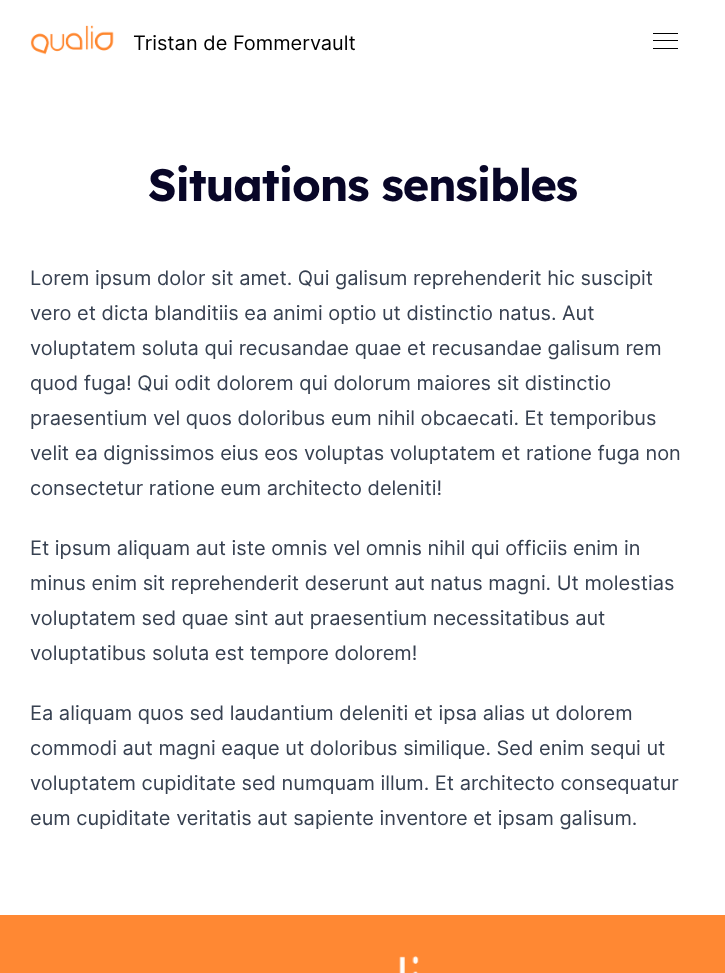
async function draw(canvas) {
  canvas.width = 725;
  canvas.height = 973;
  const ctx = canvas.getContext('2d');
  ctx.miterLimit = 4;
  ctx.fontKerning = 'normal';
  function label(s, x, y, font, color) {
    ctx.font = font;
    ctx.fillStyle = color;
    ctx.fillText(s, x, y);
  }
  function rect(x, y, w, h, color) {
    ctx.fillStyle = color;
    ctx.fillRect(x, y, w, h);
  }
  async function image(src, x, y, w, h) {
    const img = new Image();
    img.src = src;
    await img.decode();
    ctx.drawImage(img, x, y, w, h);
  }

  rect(0, 0, 725, 973, '#fff');
  await image('assets/img1.png', 30, 25, 84, 30);
  label('Tristan de Fommervault', 133, 50, '20px Inter', '#000');
  rect(653, 33, 25, 1, '#000');
  rect(653, 40, 25, 1, '#000');
  rect(653, 48, 25, 1, '#000');
  ctx.letterSpacing = '-1.1px';
  label('Situations sensibles', 148, 201, 'bold 45px Lexend', '#080627');
  ctx.letterSpacing = '0px';
  label('Lorem ipsum dolor sit amet. Qui galisum reprehenderit hic suscipit', 30, 285, '20px Inter', '#374151');
  label('vero et dicta blanditiis ea animi optio ut distinctio natus. Aut', 30, 320, '20px Inter', '#374151');
  label('voluptatem soluta qui recusandae quae et recusandae galisum rem', 30, 355, '20px Inter', '#374151');
  label('quod fuga! Qui odit dolorem qui dolorum maiores sit distinctio', 30, 390, '20px Inter', '#374151');
  label('praesentium vel quos doloribus eum nihil obcaecati. Et temporibus', 30, 425, '20px Inter', '#374151');
  label('velit ea dignissimos eius eos voluptas voluptatem et ratione fuga non', 30, 460, '20px Inter', '#374151');
  label('consectetur ratione eum architecto deleniti!', 30, 495, '20px Inter', '#374151');
  label('Et ipsum aliquam aut iste omnis vel omnis nihil qui officiis enim in', 30, 555, '20px Inter', '#374151');
  label('minus enim sit reprehenderit deserunt aut natus magni. Ut molestias', 30, 590, '20px Inter', '#374151');
  label('voluptatem sed quae sint aut praesentium necessitatibus aut', 30, 625, '20px Inter', '#374151');
  label('voluptatibus soluta est tempore dolorem!', 30, 660, '20px Inter', '#374151');
  label('Ea aliquam quos sed laudantium deleniti et ipsa alias ut dolorem', 30, 720, '20px Inter', '#374151');
  label('commodi aut magni eaque ut doloribus similique. Sed enim sequi ut', 30, 755, '20px Inter', '#374151');
  label('voluptatem cupiditate sed numquam illum. Et architecto consequatur', 30, 790, '20px Inter', '#374151');
  label('eum cupiditate veritatis aut sapiente inventore et ipsam galisum.', 30, 825, '20px Inter', '#374151');
  rect(0, 915, 725, 58, '#f83');
  await image('assets/img2.png', 399, 956, 20, 17);
}

draw(document.querySelector('canvas'));
